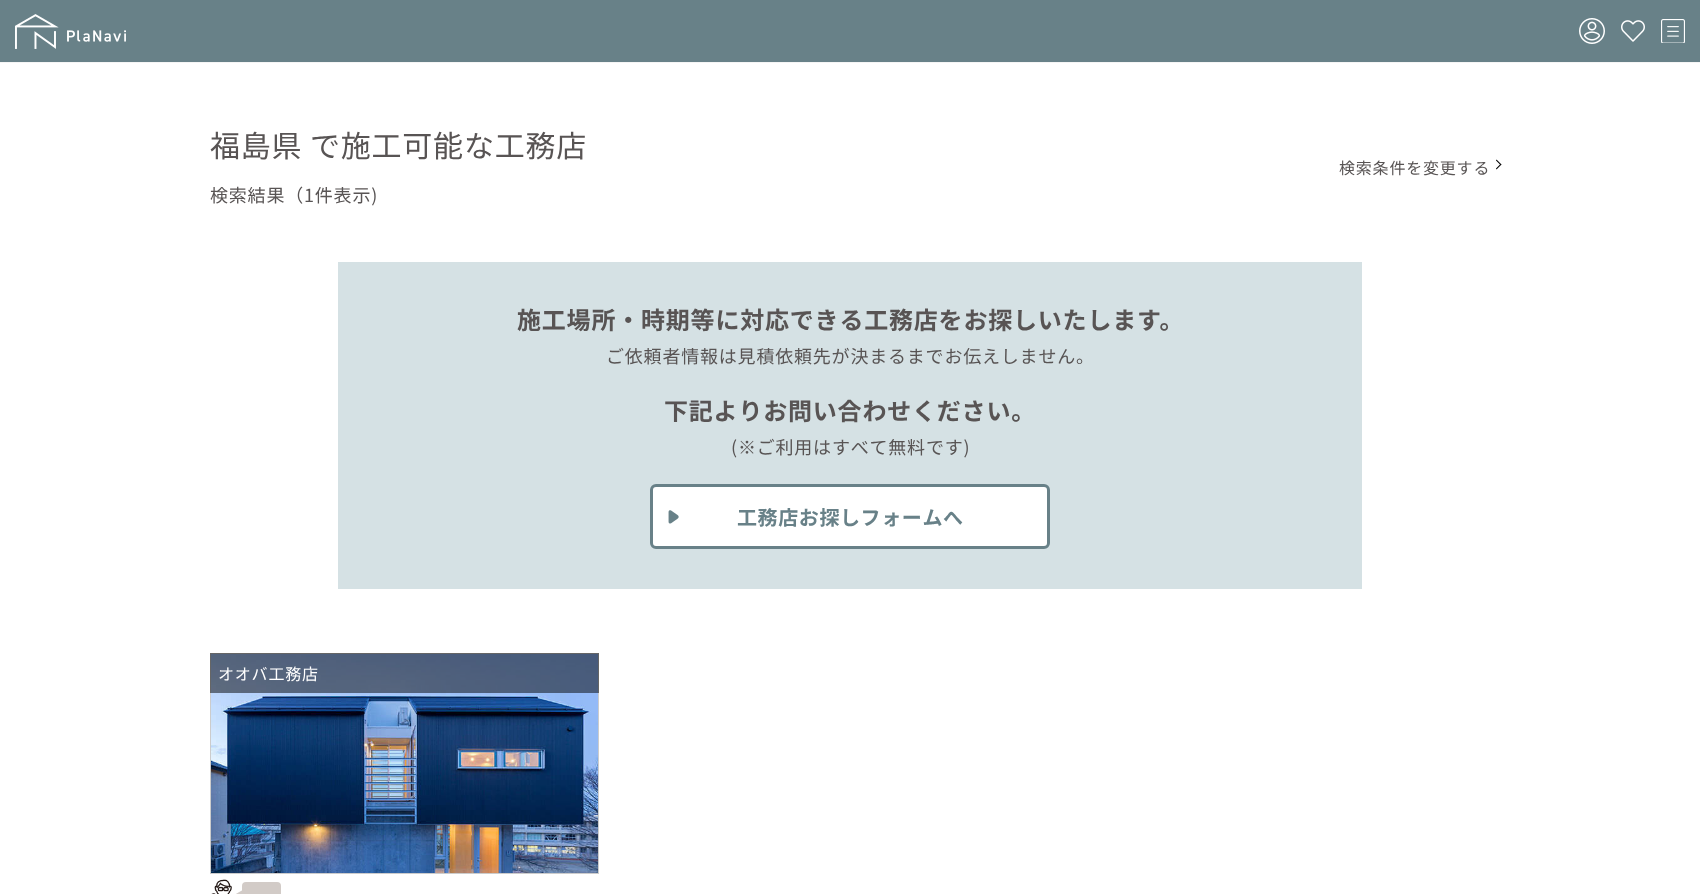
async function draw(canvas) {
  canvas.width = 1700;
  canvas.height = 894;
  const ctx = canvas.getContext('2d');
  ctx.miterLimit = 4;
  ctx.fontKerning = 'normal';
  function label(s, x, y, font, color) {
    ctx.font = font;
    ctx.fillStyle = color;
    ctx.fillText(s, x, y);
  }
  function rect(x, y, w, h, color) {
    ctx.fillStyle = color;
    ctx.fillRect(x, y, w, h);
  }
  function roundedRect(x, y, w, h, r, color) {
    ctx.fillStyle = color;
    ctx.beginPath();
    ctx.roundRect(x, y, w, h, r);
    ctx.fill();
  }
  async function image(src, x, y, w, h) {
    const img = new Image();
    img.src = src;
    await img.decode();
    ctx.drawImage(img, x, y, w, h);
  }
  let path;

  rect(0, 0, 1700, 894, '#fff');
  rect(0, 0, 1700, 62, '#688188');
  rect(0, 62, 1700, 1, '#f5f5f5');
  await image('assets/img1.png', 15, 14, 111, 35);
  await image('assets/img2.png', 1579, 18, 26, 26);
  await image('assets/img3.png', 1621, 20, 24, 22);
  await image('assets/img4.png', 1661, 19, 24, 24);
  ctx.letterSpacing = '0.8px';
  label('福島県 で施工可能な工務店', 210, 157, '30px Noto Sans JP', '#585454');
  label('検索結果（1件表示)', 210, 202, '18px Noto Sans JP', '#585454');
  label('検索条件を変更する', 1339, 174, '16px Noto Sans JP', '#585454');
  ctx.fillStyle = '#000';
  path = new Path2D('M1496.5 159.5L1501.5 164.5L1500.5 165L1496 160.5Z');
  ctx.fill(path);
  path = new Path2D('M1500.5 164L1501.5 164.5L1496.5 169.5L1496 168.5Z');
  ctx.fill(path);
  rect(338, 262, 1024, 327, '#d5e1e4');
  label('施工場所・時期等に対応できる工務店をお探しいたします。', 517, 329, 'bold 24px Noto Sans JP', '#585454');
  label('ご依頼者情報は見積依頼先が決まるまでお伝えしません。', 606, 363, '18px Noto Sans JP', '#585454');
  label('下記よりお問い合わせください。', 664, 420, 'bold 24px Noto Sans JP', '#585454');
  label('(※ご利用はすべて無料です)', 731, 454, '18px Noto Sans JP', '#585454');
  ctx.fillStyle = '#fff';
  ctx.beginPath();
  ctx.roundRect(651.5, 485.5, 397, 62, 4.5);
  ctx.fill();
  ctx.strokeStyle = '#688188';
  ctx.lineWidth = 3;
  ctx.stroke();
  await image('assets/img5.png', 668, 510, 11, 14);
  ctx.letterSpacing = '0.6px';
  label('工務店お探しフォームへ', 737, 525, 'bold 20px Noto Sans JP', '#688188');
  ctx.strokeStyle = '#ccc';
  ctx.lineWidth = 1;
  ctx.strokeRect(210.5, 653.5, 388, 220);
  await image('assets/img6.png', 211, 654, 387, 219);
  rect(210, 653, 389, 40, '#00000080');
  ctx.letterSpacing = '0.8px';
  label('オオバ工務店', 218, 680, '16px Noto Sans JP', '#fff');
  await image('assets/img7.png', 211, 879, 21, 15);
  roundedRect(242, 882, 39, 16, 4, '#d2cbc7');
  path = new Path2D('M247 887.5V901.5L235 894.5Z');
  ctx.fill(path);
}

draw(document.querySelector('canvas'));
